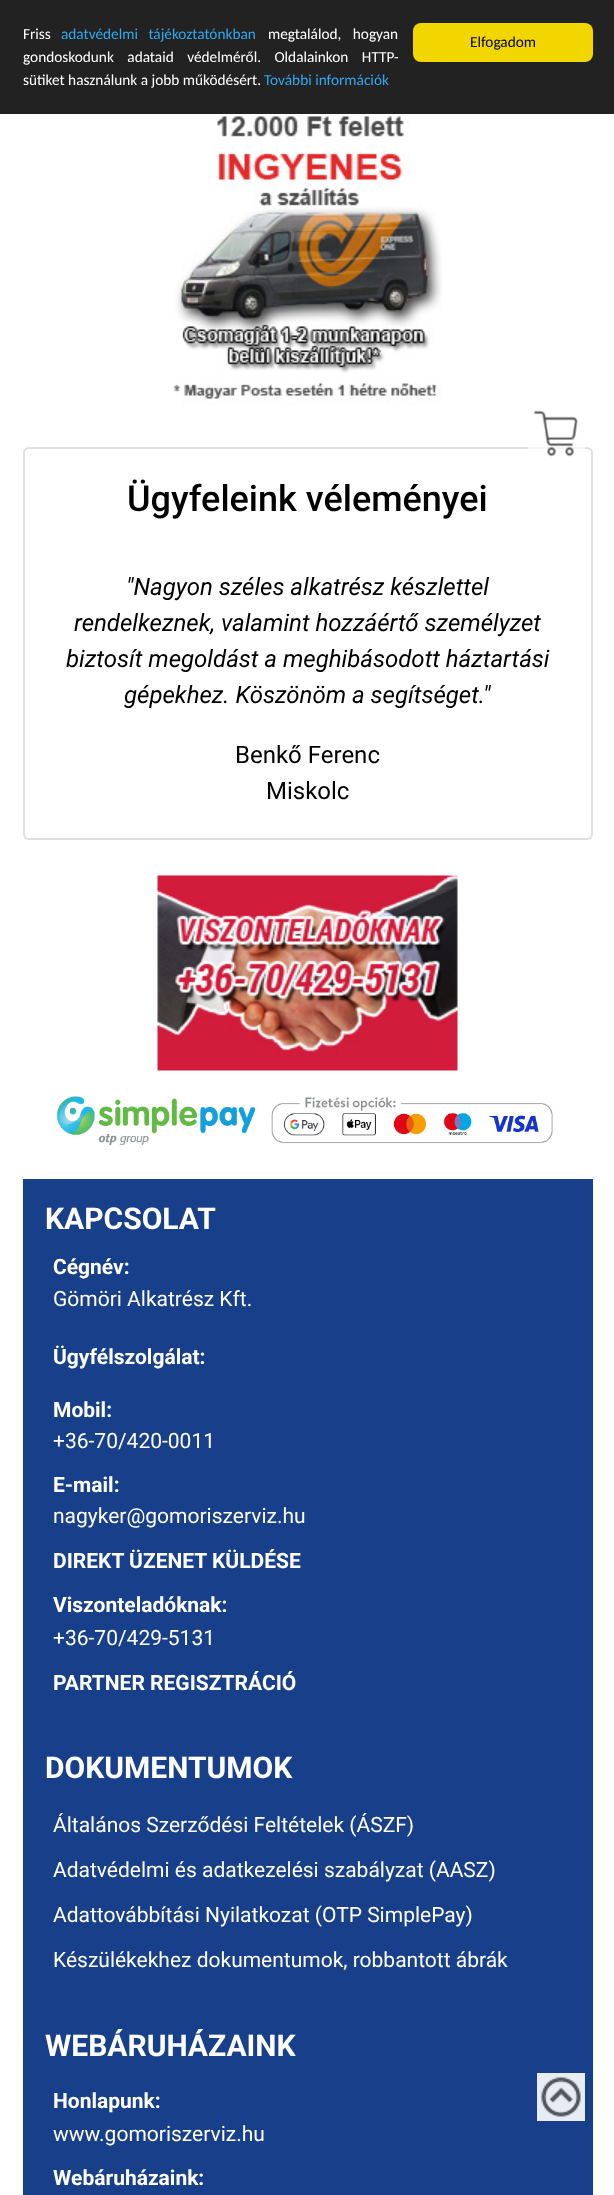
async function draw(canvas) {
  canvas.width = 614;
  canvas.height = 2195;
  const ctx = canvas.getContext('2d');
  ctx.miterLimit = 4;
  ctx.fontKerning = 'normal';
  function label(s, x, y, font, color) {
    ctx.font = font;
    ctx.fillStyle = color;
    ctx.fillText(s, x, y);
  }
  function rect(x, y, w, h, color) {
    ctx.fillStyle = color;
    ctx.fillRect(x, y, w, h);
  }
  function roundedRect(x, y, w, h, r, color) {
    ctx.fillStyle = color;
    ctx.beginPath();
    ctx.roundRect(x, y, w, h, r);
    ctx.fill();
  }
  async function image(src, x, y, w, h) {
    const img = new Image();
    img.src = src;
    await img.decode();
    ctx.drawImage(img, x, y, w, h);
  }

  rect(0, 0, 614, 2195, '#fff');
  rect(0, 0, 614, 114, '#222');
  label('Friss', 23, 39, '15.3px Carlito', '#fff');
  ctx.wordSpacing = '7px';
  label('adatvédelmi tájékoztatónkban', 61, 39, '15.3px Carlito', '#31a8f0');
  ctx.wordSpacing = '8px';
  label('megtalálod, hogyan', 268, 39, '15.3px Carlito', '#fff');
  ctx.wordSpacing = '10px';
  label('gondoskodunk adataid védelméről. Oldalainkon HTTP-', 23, 62, '15.3px Carlito', '#fff');
  ctx.wordSpacing = '0px';
  label('sütiket használunk a jobb működésért.', 23, 85, '15.3px Carlito', '#fff');
  label('További információk', 264, 85, '15.3px Carlito', '#31a8f0');
  roundedRect(413, 23, 180, 39, 8, '#f1d600');
  label('Elfogadom', 470, 47, '15.3px Carlito', '#000');
  ctx.beginPath();
  ctx.roundRect(24, 448, 568, 391, 5);
  ctx.strokeStyle = '#dfdfdf';
  ctx.lineWidth = 2;
  ctx.stroke();
  rect(528, 447, 57, 2, '#ffffffb3');
  await image('assets/img1.png', 533, 410, 45, 47);
  await image('assets/img2.png', 173, 114, 269, 292);
  label('Ügyfeleink véleményei', 127, 511, '500 36px Roboto', '#000');
  label('"Nagyon széles alkatrész készlettel', 126, 595, 'italic 24px Roboto', '#000');
  label('rendelkeznek, valamint hozzáértő személyzet', 74, 631, 'italic 24px Roboto', '#000');
  label('biztosít megoldást a meghibásodott háztartási', 66, 667, 'italic 24px Roboto', '#000');
  label('gépekhez. Köszönöm a segítséget."', 124, 703, 'italic 24px Roboto', '#000');
  label('Benkő Ferenc', 235, 763, '24px Roboto', '#000');
  label('Miskolc', 266, 799, '24px Roboto', '#000');
  await image('assets/img3.png', 157, 875, 301, 196);
  await image('assets/img4.png', 56, 1096, 497, 50);
  rect(23, 1179, 570, 1016, '#183f8a');
  label('KAPCSOLAT', 45, 1229, 'bold 30px Roboto', '#fff');
  label('Cégnév:', 53, 1274, 'bold 21px Roboto', '#fff');
  label('Gömöri Alkatrész Kft.', 53, 1306, '21px Roboto', '#fff');
  label('Ügyfélszolgálat:', 53, 1364, 'bold 21px Roboto', '#fff');
  label('Mobil:', 53, 1417, 'bold 21px Roboto', '#fff');
  label('+36-70/420-0011', 53, 1448, '21px Roboto', '#fff');
  label('E-mail:', 53, 1492, 'bold 21px Roboto', '#fff');
  label('nagyker@gomoriszerviz.hu', 53, 1523, '21px Roboto', '#fff');
  label('DIREKT ÜZENET KÜLDÉSE', 53, 1568, 'bold 21px Roboto', '#fff');
  label('Viszonteladóknak:', 53, 1612, 'bold 21px Roboto', '#fff');
  label('+36-70/429-5131', 53, 1645, '21px Roboto', '#fff');
  label('PARTNER REGISZTRÁCIÓ', 53, 1690, 'bold 21px Roboto', '#fff');
  label('DOKUMENTUMOK', 45, 1778, 'bold 30px Roboto', '#fff');
  label('Általános Szerződési Feltételek (ÁSZF)', 53, 1832, '21px Roboto', '#fff');
  label('Adatvédelmi és adatkezelési szabályzat (AASZ)', 53, 1877, '21px Roboto', '#fff');
  label('Adattovábbítási Nyilatkozat (OTP SimplePay)', 53, 1922, '21px Roboto', '#fff');
  label('Készülékekhez dokumentumok, robbantott ábrák', 53, 1967, '21px Roboto', '#fff');
  label('WEBÁRUHÁZAINK', 45, 2056, 'bold 30px Roboto', '#fff');
  label('Honlapunk:', 53, 2108, 'bold 21px Roboto', '#fff');
  label('www.gomoriszerviz.hu', 53, 2141, '21px Roboto', '#fff');
  label('Webáruházaink:', 53, 2185, 'bold 21px Roboto', '#fff');
  await image('assets/img5.png', 537, 2073, 48, 48);
}

draw(document.querySelector('canvas'));
